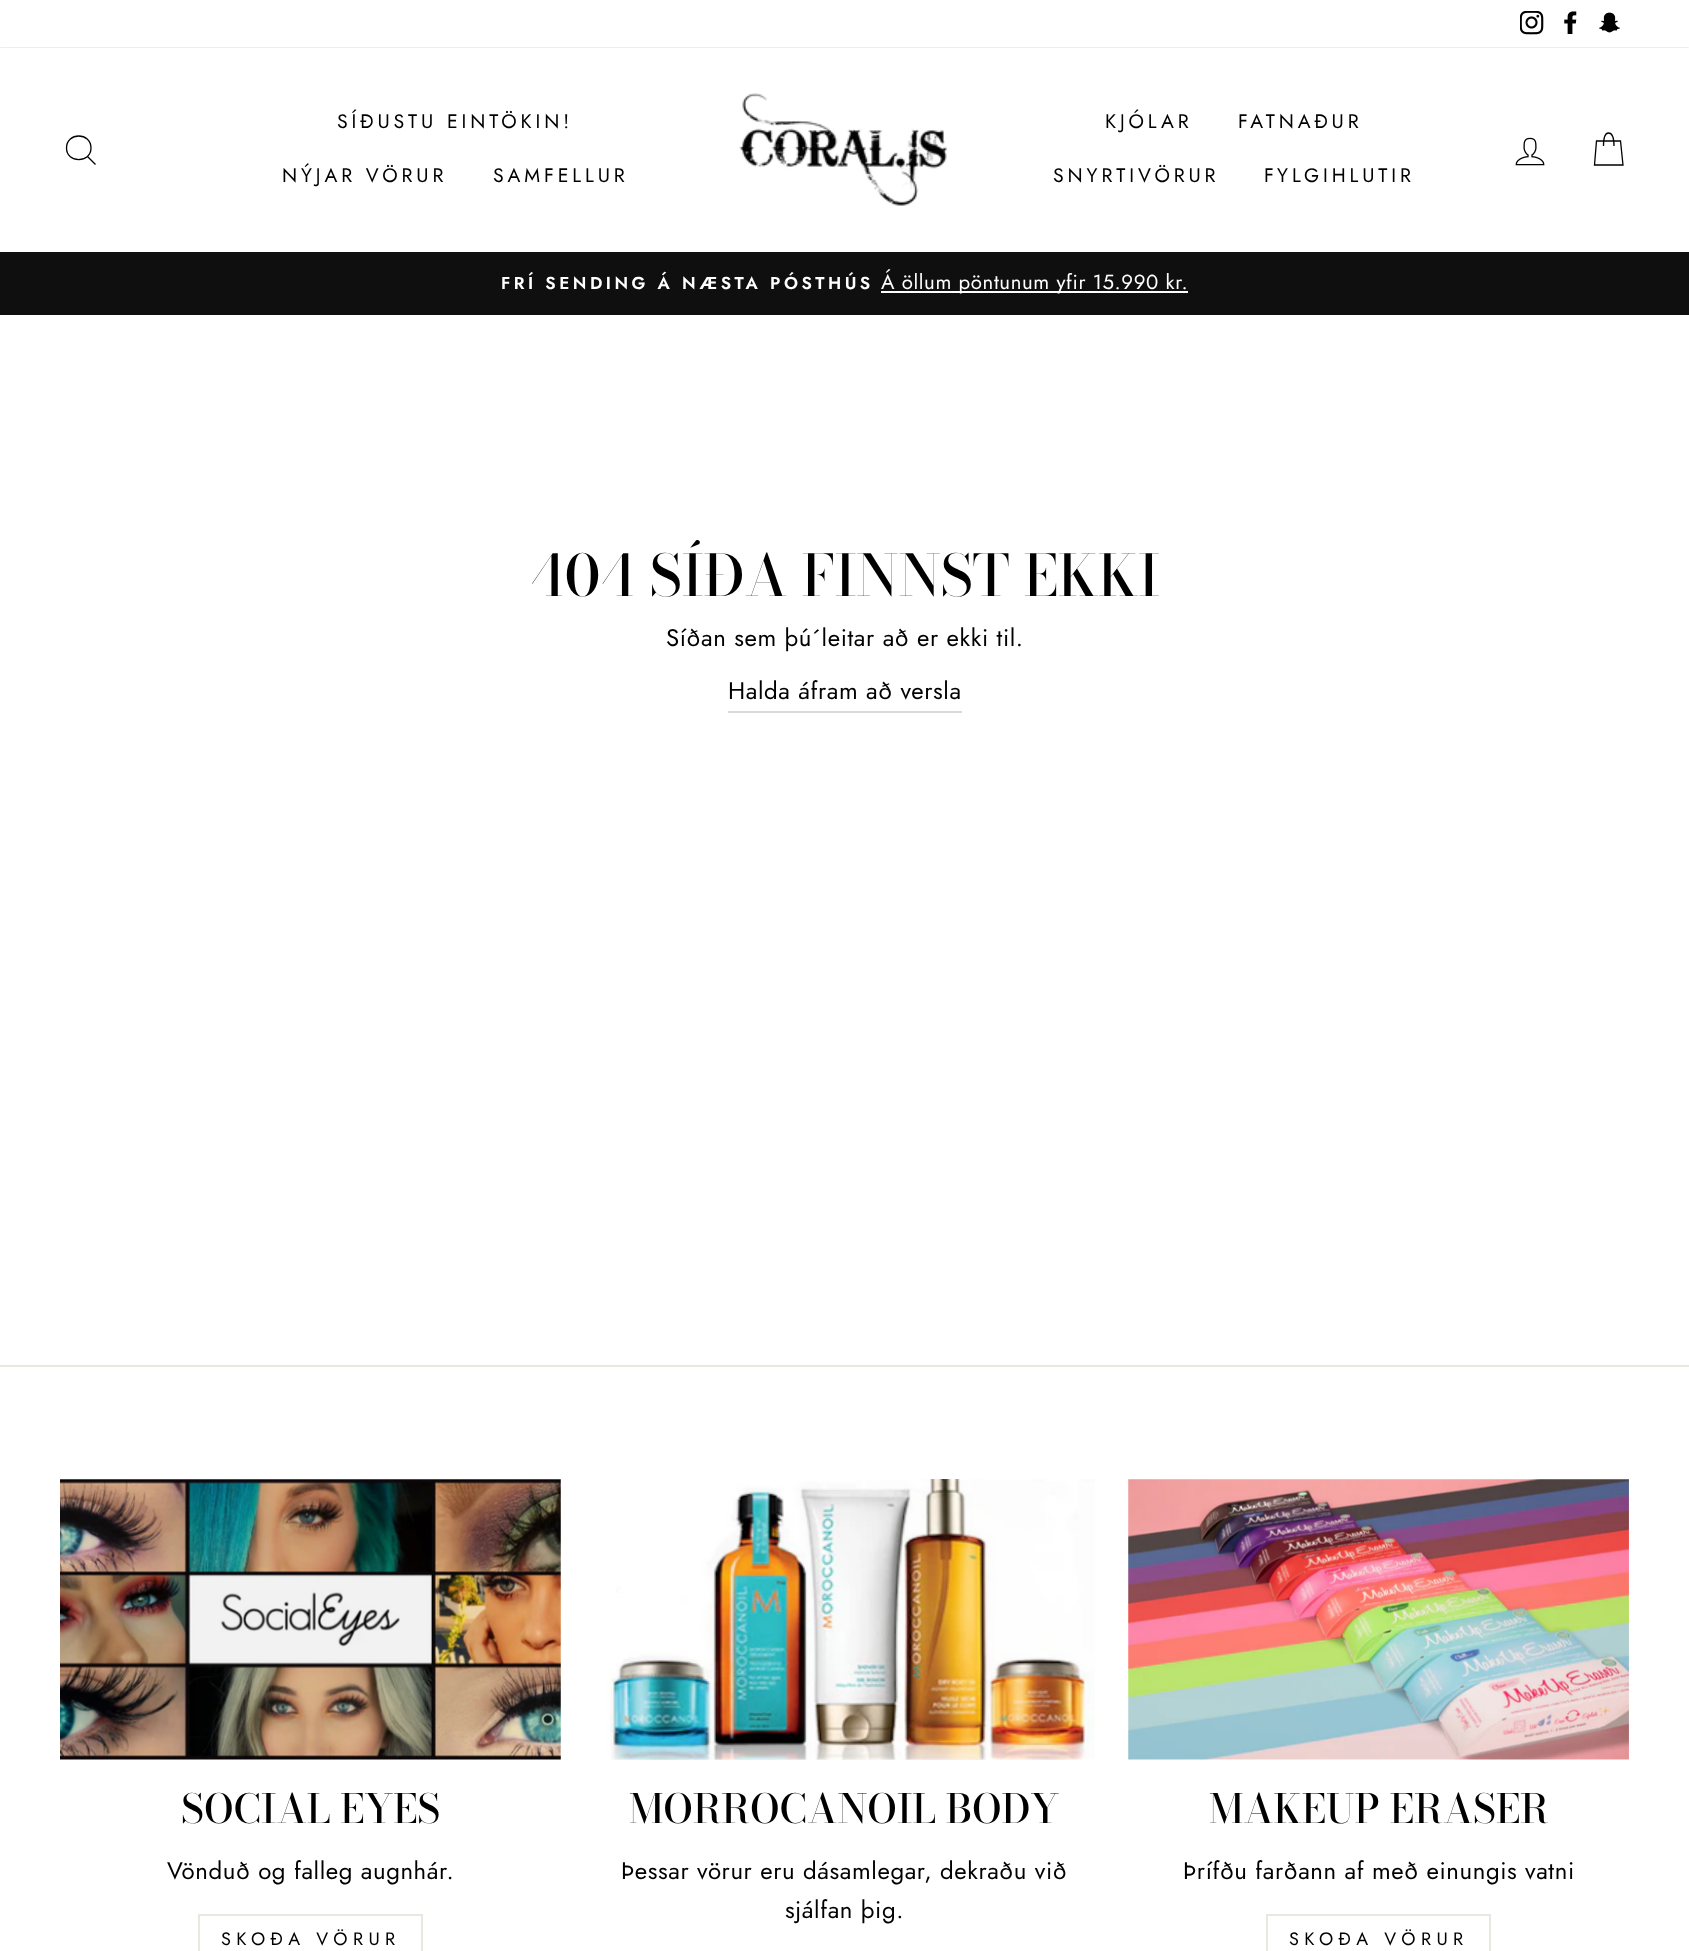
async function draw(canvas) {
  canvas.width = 1689;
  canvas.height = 1951;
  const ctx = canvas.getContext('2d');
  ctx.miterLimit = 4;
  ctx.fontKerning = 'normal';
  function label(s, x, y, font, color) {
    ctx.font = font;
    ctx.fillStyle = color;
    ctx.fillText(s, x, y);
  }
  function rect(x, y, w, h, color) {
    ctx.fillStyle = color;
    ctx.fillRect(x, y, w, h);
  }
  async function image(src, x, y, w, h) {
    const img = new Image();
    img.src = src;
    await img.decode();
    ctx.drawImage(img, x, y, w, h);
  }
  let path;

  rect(0, 0, 1689, 1951, '#fff');
  await image('assets/img1.png', 1520, 11, 24, 24);
  await image('assets/img2.png', 1564, 11, 13, 23);
  await image('assets/img3.png', 1599, 12, 21, 21);
  ctx.save();
  ctx.beginPath();
  ctx.rect(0, 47, 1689, 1);
  ctx.clip();
  ctx.fillStyle = '#00000033';
  ctx.filter = 'blur(1px)';
  ctx.beginPath();
  ctx.rect(0, 48, 1689, 204);
  ctx.fill();
  ctx.filter = 'none';
  ctx.restore();
  path = new Path2D('M91 148C91 163.5 66.5 163.5 66.5 148C66.5 132 91 132 91 148ZM95.5 164.5L87.5 156.5');
  ctx.strokeStyle = '#000';
  ctx.lineWidth = 1.3;
  ctx.stroke(path);
  ctx.letterSpacing = '3.9px';
  label('SÍÐUSTU EINTÖKIN!', 337, 128, '19.5px Jost', '#000');
  label('NÝJAR VÖRUR', 282, 182, '19.5px Jost', '#000');
  label('SAMFELLUR', 493, 182, '19.5px Jost', '#000');
  await image('assets/img4.png', 739, 93, 209, 113);
  label('KJÓLAR', 1105, 128, '19.5px Jost', '#000');
  label('FATNAÐUR', 1238, 128, '19.5px Jost', '#000');
  label('SNYRTIVÖRUR', 1053, 182, '19.5px Jost', '#000');
  label('FYLGIHLUTIR', 1264, 182, '19.5px Jost', '#000');
  await image('assets/img5.png', 1515, 137, 30, 29);
  path = new Path2D('M1603.5 146C1603.5 135.5 1605.5 133 1608.5 133C1611.5 133 1614 135.5 1614 146M1596.5 141H1620.5L1623 165H1594.5Z');
  ctx.stroke(path);
  rect(0, 252, 1689, 63, '#0f0f0f');
  ctx.letterSpacing = '3.5px';
  label('FRÍ SENDING Á NÆSTA PÓSTHÚS', 501, 289, '600 17.3px Jost', '#fff');
  rect(881, 291, 307, 2, '#fff');
  ctx.letterSpacing = '0.6px';
  label('Á öllum pöntunum yfir 15.990 kr.', 881, 289, '20.4px Jost', '#fff');
  ctx.letterSpacing = '0px';
  label('404 SÍÐA FINNST EKKI', 530, 596, '500 57px Bodoni Moda', '#000');
  ctx.letterSpacing = '0.6px';
  label('Síðan sem þú´leitar að er ekki til.', 666, 646, '24px Jost', '#000');
  rect(728, 711, 234, 2, '#d9d9d9');
  label('Halda áfram að versla', 728, 699, '24px Jost', '#000');
  rect(0, 1365, 1689, 2, '#e8e8e1');
  await image('assets/img6.png', 60, 1479, 501, 281);
  ctx.letterSpacing = '0px';
  label('SOCIAL EYES', 181, 1823, '500 39.9px "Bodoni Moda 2"', '#000');
  ctx.letterSpacing = '0.6px';
  label('Vönduð og falleg augnhár.', 167, 1879, '24px Jost', '#000');
  ctx.strokeStyle = '#e8e8e1';
  ctx.lineWidth = 2;
  ctx.strokeRect(199, 1915, 223, 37);
  ctx.letterSpacing = '5.4px';
  label('SKOÐA VÖRUR', 221, 1945, '18px Jost', '#000');
  await image('assets/img7.png', 606, 1479, 489, 281);
  ctx.letterSpacing = '0px';
  label('MORROCANOIL BODY', 629, 1823, '500 39.9px "Bodoni Moda 2"', '#000');
  ctx.letterSpacing = '0.6px';
  label('Þessar vörur eru dásamlegar, dekraðu við', 621, 1879, '24px Jost', '#000');
  label('sjálfan þig.', 785, 1918, '24px Jost', '#000');
  await image('assets/img8.png', 1128, 1479, 501, 281);
  ctx.letterSpacing = '0px';
  label('MAKEUP ERASER', 1209, 1823, '500 39.9px "Bodoni Moda 2"', '#000');
  ctx.letterSpacing = '0.6px';
  label('Þrífðu farðann af með einungis vatni', 1183, 1879, '24px Jost', '#000');
  ctx.strokeRect(1267, 1915, 223, 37);
  ctx.letterSpacing = '5.4px';
  label('SKOÐA VÖRUR', 1289, 1945, '18px Jost', '#000');
}

draw(document.querySelector('canvas'));
